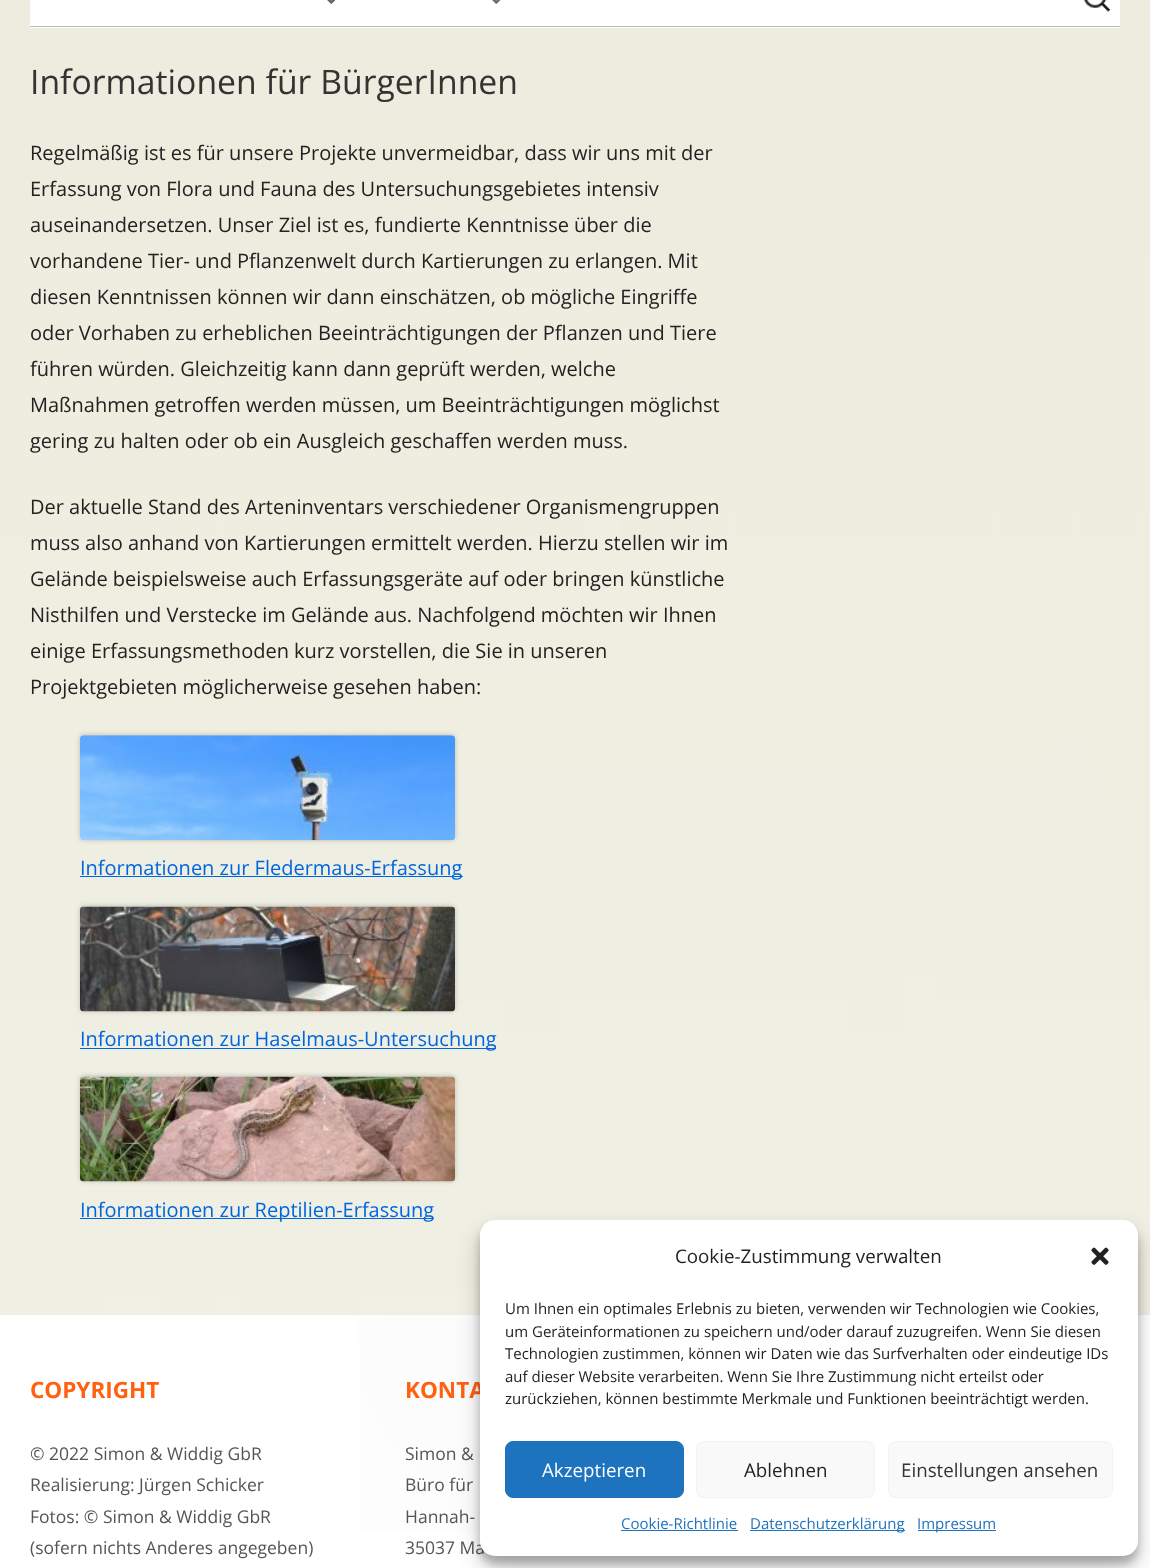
async function draw(canvas) {
  canvas.width = 1150;
  canvas.height = 1568;
  const ctx = canvas.getContext('2d');
  ctx.miterLimit = 4;
  ctx.fontKerning = 'normal';
  function label(s, x, y, font, color) {
    ctx.font = font;
    ctx.fillStyle = color;
    ctx.fillText(s, x, y);
  }
  function rect(x, y, w, h, color) {
    ctx.fillStyle = color;
    ctx.fillRect(x, y, w, h);
  }
  function roundedRect(x, y, w, h, r, color) {
    ctx.fillStyle = color;
    ctx.beginPath();
    ctx.roundRect(x, y, w, h, r);
    ctx.fill();
  }
  async function image(src, x, y, w, h) {
    const img = new Image();
    img.src = src;
    await img.decode();
    ctx.drawImage(img, x, y, w, h);
  }
  let gradient;

  rect(0, 0, 1150, 1568, '#fff');
  await image('assets/img1.png', 0, 0, 1150, 1314);
  rect(30, 0, 1090, 28, '#fff');
  rect(30, 26, 1090, 1, '#bbb');
  await image('assets/img2.png', 327, 0, 9, 4);
  await image('assets/img3.png', 492, 0, 9, 4);
  await image('assets/img4.png', 1083, 0, 28, 12);
  label('Informationen für BürgerInnen', 30, 94, '33.75px Open Sans', '#333');
  label('Regelmäßig ist es für unsere Projekte unvermeidbar, dass wir uns mit der', 30, 160, '20px Open Sans', '#222');
  label('Erfassung von Flora und Fauna des Untersuchungsgebietes intensiv', 30, 196, '20px Open Sans', '#222');
  label('auseinandersetzen. Unser Ziel ist es, fundierte Kenntnisse über die', 30, 232, '20px Open Sans', '#222');
  label('vorhandene Tier- und Pflanzenwelt durch Kartierungen zu erlangen. Mit', 30, 268, '20px Open Sans', '#222');
  label('diesen Kenntnissen können wir dann einschätzen, ob mögliche Eingriffe', 30, 304, '20px Open Sans', '#222');
  label('oder Vorhaben zu erheblichen Beeinträchtigungen der Pflanzen und Tiere', 30, 340, '20px Open Sans', '#222');
  label('führen würden. Gleichzeitig kann dann geprüft werden, welche', 30, 376, '20px Open Sans', '#222');
  label('Maßnahmen getroffen werden müssen, um Beeinträchtigungen möglichst', 30, 412, '20px Open Sans', '#222');
  label('gering zu halten oder ob ein Ausgleich geschaffen werden muss.', 30, 448, '20px Open Sans', '#222');
  label('Der aktuelle Stand des Arteninventars verschiedener Organismengruppen', 30, 514, '20px Open Sans', '#222');
  label('muss also anhand von Kartierungen ermittelt werden. Hierzu stellen wir im', 30, 550, '20px Open Sans', '#222');
  label('Gelände beispielsweise auch Erfassungsgeräte auf oder bringen künstliche', 30, 586, '20px Open Sans', '#222');
  label('Nisthilfen und Verstecke im Gelände aus. Nachfolgend möchten wir Ihnen', 30, 622, '20px Open Sans', '#222');
  label('einige Erfassungsmethoden kurz vorstellen, die Sie in unseren', 30, 658, '20px Open Sans', '#222');
  label('Projektgebieten möglicherweise gesehen haben:', 30, 694, '20px Open Sans', '#222');
  ctx.fillStyle = '#00000033';
  ctx.filter = 'blur(2.5px)';
  ctx.beginPath();
  ctx.roundRect(80, 735, 375, 105, 4);
  ctx.fill();
  ctx.filter = 'none';
  await image('assets/img5.png', 80, 735, 375, 106);
  rect(80, 876, 383, 1, '#0066df');
  label('Informationen zur Fledermaus-Erfassung', 80, 875, '20px Open Sans', '#0066df');
  ctx.fillStyle = '#00000033';
  ctx.filter = 'blur(2.5px)';
  ctx.beginPath();
  ctx.roundRect(80, 906, 375, 105, 4);
  ctx.fill();
  ctx.filter = 'none';
  await image('assets/img6.png', 80, 906, 375, 106);
  rect(80, 1048, 416, 1, '#0066df');
  label('Informationen zur Haselmaus-Untersuchung', 80, 1046, '20px Open Sans', '#0066df');
  ctx.fillStyle = '#00000033';
  ctx.filter = 'blur(2.5px)';
  ctx.beginPath();
  ctx.roundRect(80, 1076, 375, 105, 4);
  ctx.fill();
  ctx.filter = 'none';
  await image('assets/img7.png', 80, 1076, 375, 106);
  rect(80, 1218, 354, 1, '#0066df');
  label('Informationen zur Reptilien-Erfassung', 80, 1217, '20px Open Sans', '#0066df');
  gradient = ctx.createRadialGradient(575, 1315, 0, 575, 1315, 575);
  gradient.addColorStop(0, '#fbfbfb');
  gradient.addColorStop(1, '#fff');
  ctx.fillStyle = gradient;
  ctx.fillRect(359, 1315, 432, 216);
  rect(0, 1314, 1150, 1, '#ededed');
  label('COPYRIGHT', 30, 1398, 'bold 22.5px Open Sans', '#ff6111');
  label('© 2022 Simon & Widdig GbR', 30, 1460, '17.5px Open Sans', '#555');
  label('Realisierung: Jürgen Schicker', 30, 1491, '17.5px Open Sans', '#555');
  label('Fotos: © Simon & Widdig GbR', 30, 1523, '17.5px Open Sans', '#555');
  label('(sofern nichts Anderes angegeben)', 30, 1554, '17.5px Open Sans', '#555');
  label('KONTA', 405, 1398, 'bold 22.5px Open Sans', '#ff6111');
  label('Simon &', 405, 1460, '17.5px Open Sans', '#555');
  label('Büro für', 405, 1491, '17.5px Open Sans', '#555');
  label('Hannah-', 405, 1523, '17.5px Open Sans', '#555');
  label('35037 Ma', 405, 1554, '17.5px Open Sans', '#555');
  ctx.fillStyle = '#0000003b';
  ctx.filter = 'blur(4px)';
  ctx.beginPath();
  ctx.roundRect(480, 1228, 658, 336, 15);
  ctx.fill();
  ctx.filter = 'none';
  ctx.fillStyle = '#00000030';
  ctx.filter = 'blur(12.5px)';
  ctx.beginPath();
  ctx.roundRect(480, 1233, 658, 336, 15);
  ctx.fill();
  ctx.filter = 'none';
  roundedRect(480, 1220, 658, 336, 15, '#fff');
  label('Cookie-Zustimmung verwalten', 675, 1263, '18.75px Open Sans', '#222');
  await image('assets/img8.png', 1091, 1247, 18, 18);
  label('Um Ihnen ein optimales Erlebnis zu bieten, verwenden wir Technologien wie Cookies,', 505, 1314, '15px Open Sans', '#222');
  label('um Geräteinformationen zu speichern und/oder darauf zuzugreifen. Wenn Sie diesen', 505, 1337, '15px Open Sans', '#222');
  label('Technologien zustimmen, können wir Daten wie das Surfverhalten oder eindeutige IDs', 505, 1359, '15px Open Sans', '#222');
  label('auf dieser Website verarbeiten. Wenn Sie Ihre Zustimmung nicht erteilst oder', 505, 1382, '15px Open Sans', '#222');
  label('zurückziehen, können bestimmte Merkmale und Funktionen beeinträchtigt werden.', 505, 1404, '15px Open Sans', '#222');
  ctx.fillStyle = '#1e73be';
  ctx.beginPath();
  ctx.roundRect(505.5, 1441.5, 178, 56, 7.5);
  ctx.fill();
  ctx.strokeStyle = '#1e73be';
  ctx.stroke();
  label('Akzeptieren', 542, 1477, '18.75px Open Sans', '#fff');
  ctx.fillStyle = '#f9f9f9';
  ctx.beginPath();
  ctx.roundRect(696.5, 1441.5, 178, 56, 7.5);
  ctx.fill();
  ctx.strokeStyle = '#f2f2f2';
  ctx.stroke();
  label('Ablehnen', 744, 1477, '18.75px Open Sans', '#222');
  ctx.fillStyle = '#f9f9f9';
  ctx.beginPath();
  ctx.roundRect(888.5, 1441.5, 224, 56, 7.5);
  ctx.fill();
  ctx.stroke();
  label('Einstellungen ansehen', 901, 1477, '18.75px Open Sans', '#333');
  label('Cookie-Richtlinie', 621, 1529, '15px Open Sans', '#1e73be');
  rect(621, 1530, 117, 1, '#1e73be');
  rect(750, 1530, 155, 1, '#1e73be');
  label('Datenschutzerklärung', 750, 1529, '15px Open Sans', '#1e73be');
  rect(918, 1530, 78, 1, '#1e73be');
  label('Impressum', 917, 1529, '15px Open Sans', '#1e73be');
}

draw(document.querySelector('canvas'));
